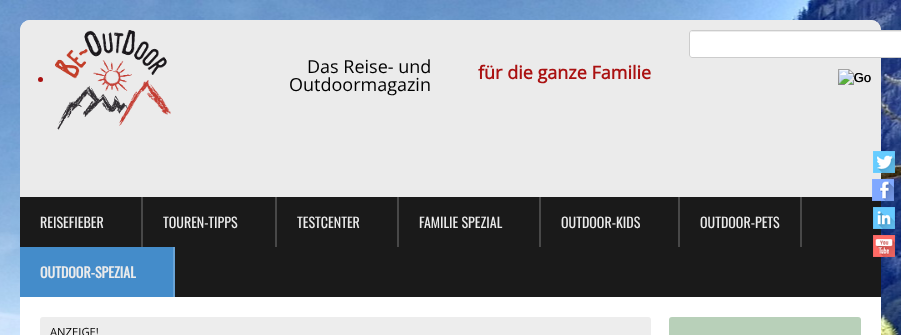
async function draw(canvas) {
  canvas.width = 901;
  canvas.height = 335;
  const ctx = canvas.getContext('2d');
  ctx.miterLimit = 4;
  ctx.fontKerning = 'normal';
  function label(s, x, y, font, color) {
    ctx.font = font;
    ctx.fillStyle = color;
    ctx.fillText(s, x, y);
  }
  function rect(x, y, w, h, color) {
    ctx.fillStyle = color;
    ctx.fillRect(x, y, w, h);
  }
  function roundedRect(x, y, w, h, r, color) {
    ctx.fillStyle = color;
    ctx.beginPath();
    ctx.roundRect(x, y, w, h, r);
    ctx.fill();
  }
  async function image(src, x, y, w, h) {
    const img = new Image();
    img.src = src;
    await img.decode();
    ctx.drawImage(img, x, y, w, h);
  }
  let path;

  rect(0, 0, 901, 335, '#fff');
  await image('assets/img1.png', 0, 0, 901, 335);
  ctx.beginPath();
  ctx.roundRect(20, 20, 861, 297, [10, 10, 0, 0]);
  ctx.fill();
  ctx.fillStyle = '#ebebeb';
  ctx.beginPath();
  ctx.roundRect(20, 20, 861, 177, [10, 10, 0, 0]);
  ctx.fill();
  ctx.fillStyle = '#a11';
  ctx.beginPath();
  ctx.arc(40.5, 79.5, 2.5, 0, 2 * Math.PI);
  ctx.fill();
  await image('assets/img2.png', 55, 30, 116, 100);
  label('Das Reise- und', 307, 73, '18px Open Sans', '#000');
  label('Outdoormagazin', 289, 91, '18px Open Sans', '#000');
  label('für die ganze Familie', 478, 79, 'bold 18px Open Sans', '#a11');
  roundedRect(689, 30, 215, 28, 3, '#fff');
  ctx.fillStyle = '#ececec';
  path = new Path2D('M692 32H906C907 32 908 33 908 34C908 33 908 31 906 31H692L691 32L690 34C690 33 691 32 692 32Z');
  ctx.fill(path);
  ctx.beginPath();
  ctx.roundRect(689.5, 30.5, 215, 27, 2.5);
  ctx.strokeStyle = '#ccc';
  ctx.stroke();
  await image('assets/img3.png', 838, 69, 33, 16);
  label('Go', 854, 82, '13px Liberation Sans', '#000');
  rect(20, 197, 861, 100, '#1a1a1a');
  rect(141, 197, 2, 50, '#484848');
  label('REISEFIEBER', 40, 228, '14px Oswald', '#ebebeb');
  rect(275, 197, 2, 50, '#484848');
  label('TOUREN-TIPPS', 163, 228, '14px Oswald', '#ebebeb');
  rect(397, 197, 2, 50, '#484848');
  label('TESTCENTER', 297, 228, '14px Oswald', '#ebebeb');
  rect(539, 197, 2, 50, '#484848');
  label('FAMILIE SPEZIAL', 419, 228, '14px Oswald', '#ebebeb');
  rect(678, 197, 2, 50, '#484848');
  label('OUTDOOR-KIDS', 561, 228, '14px Oswald', '#ebebeb');
  rect(800, 197, 2, 50, '#484848');
  label('OUTDOOR-PETS', 700, 228, '14px Oswald', '#ebebeb');
  rect(20, 247, 153, 50, '#448cca');
  rect(173, 247, 2, 50, '#69a3d5');
  label('OUTDOOR-SPEZIAL', 40, 278, 'bold 14px Oswald', '#ebebeb');
  rect(20, 317, 861, 18, '#fff');
  roundedRect(40, 317, 611, 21, 3, '#ededed');
  label('ANZEIGE!', 50, 336, '11.25px Open Sans', '#000');
  roundedRect(669, 317, 192, 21, 3, '#b8d0b9');
  await image('assets/img4.png', 873, 151, 22, 22);
  await image('assets/img5.png', 872, 179, 22, 22);
  await image('assets/img6.png', 873, 207, 22, 22);
  await image('assets/img7.png', 873, 235, 22, 22);
}

draw(document.querySelector('canvas'));
